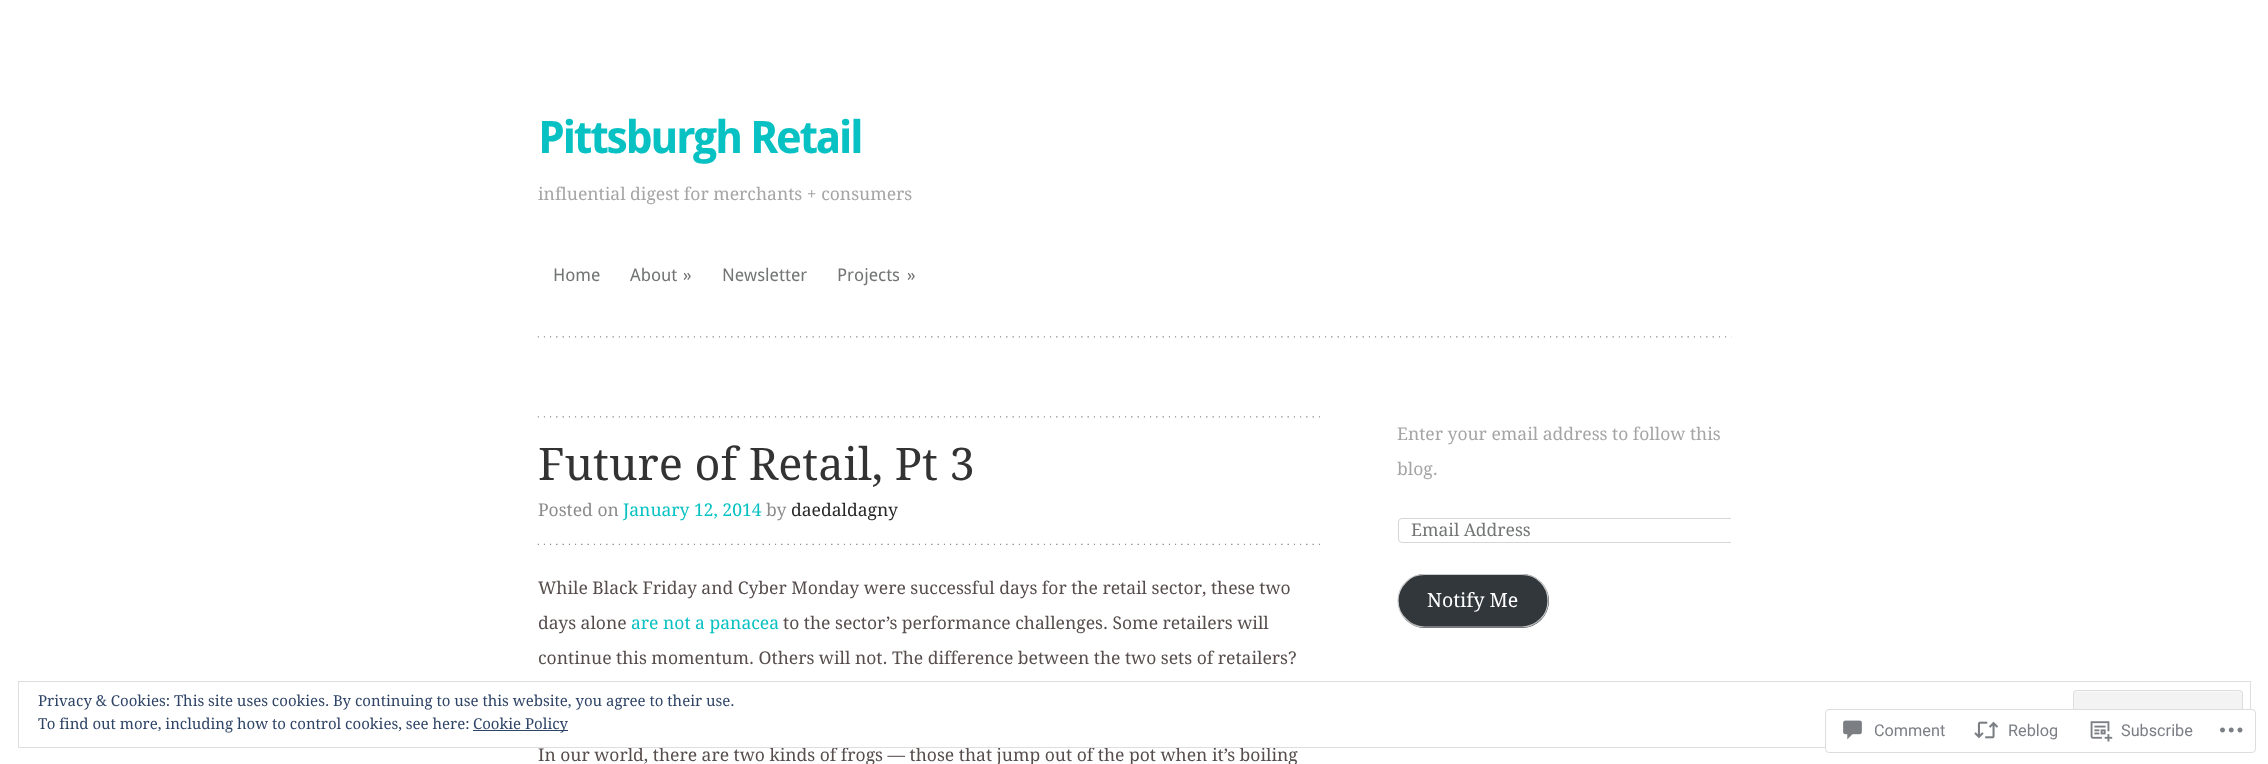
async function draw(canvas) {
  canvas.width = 2268;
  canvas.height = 764;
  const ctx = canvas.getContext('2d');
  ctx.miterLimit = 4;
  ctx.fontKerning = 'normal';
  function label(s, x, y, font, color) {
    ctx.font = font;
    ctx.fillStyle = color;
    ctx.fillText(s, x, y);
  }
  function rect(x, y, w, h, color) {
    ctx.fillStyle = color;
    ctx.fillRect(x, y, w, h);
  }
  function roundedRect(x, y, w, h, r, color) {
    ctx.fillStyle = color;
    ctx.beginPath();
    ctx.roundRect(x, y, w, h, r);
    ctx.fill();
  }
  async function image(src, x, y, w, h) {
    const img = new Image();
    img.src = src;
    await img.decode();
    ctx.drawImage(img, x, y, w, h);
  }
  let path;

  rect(0, 0, 2268, 764, '#fff');
  label('In our world, there are two kinds of frogs — those that jump out of the pot when it’s boiling', 538, 761, '17.5px Droid Serif', '#574d4d');
  ctx.strokeStyle = '#dedede';
  ctx.strokeRect(18.5, 681.5, 2232, 66);
  label('Privacy & Cookies: This site uses cookies. By continuing to use this website, you agree to their use.', 38, 706, '15px Droid Serif', '#2e4467');
  roundedRect(2073, 690, 170, 49, 4, '#f3f3f3');
  ctx.fillStyle = '#f9f9f9';
  path = new Path2D('M2076 692H2239C2240 692 2241 694 2241 695V694C2241 692 2240 691 2238 691H2076C2075 691 2074 692 2074 694V695C2074 694 2075 692 2076 692Z');
  ctx.fill(path);
  ctx.beginPath();
  ctx.roundRect(2073.5, 690.5, 169, 48, 3.5);
  ctx.stroke();
  label('To find out more, including how to control cookies, see here:', 38, 729, '15px Droid Serif', '#2e4467');
  rect(473, 730, 95, 1, '#2e4467');
  label('Cookie Policy', 473, 729, '15px Droid Serif', '#2e4467');
  await image('assets/img1.png', 537, 336, 1195, 2);
  ctx.letterSpacing = '-2.5px';
  label('Pittsburgh Retail', 538, 153, 'bold 45px Droid Sans', '#08c1c3');
  ctx.letterSpacing = '0px';
  label('influential digest for merchants + consumers', 538, 200, '17.5px Droid Serif', '#a5a5a5');
  label('Home', 553, 281, '17.5px Droid Sans', '#737575');
  label('About', 630, 281, '17.5px Droid Sans', '#737575');
  label('»', 683, 281, '17.5px Droid Sans', '#737575');
  label('Newsletter', 722, 281, '17.5px Droid Sans', '#737575');
  label('Projects', 837, 281, '17.5px Droid Sans', '#737575');
  label('»', 907, 281, '17.5px Droid Sans', '#737575');
  await image('assets/img2.png', 537, 416, 783, 2);
  label('Future of Retail, Pt 3', 538, 480, '45px Droid Serif', '#333');
  await image('assets/img3.png', 537, 543, 783, 2);
  label('Posted on', 538, 516, '17.5px Droid Serif', '#8c8c8c');
  label('January 12, 2014', 623, 516, '17.5px Droid Serif', '#08c1c3');
  label('by', 766, 516, '17.5px Droid Serif', '#8c8c8c');
  label('daedaldagny', 791, 516, '17.5px Droid Serif', '#262626');
  label('While Black Friday and Cyber Monday were successful days for the retail sector, these two', 538, 594, '17.5px Droid Serif', '#574d4d');
  label('days alone', 538, 629, '17.5px Droid Serif', '#574d4d');
  label('are not a panacea', 631, 629, '17.5px Droid Serif', '#08c1c3');
  label('to the sector’s performance challenges. Some retailers will', 783, 629, '17.5px Droid Serif', '#574d4d');
  label('continue this momentum. Others will not. The difference between the two sets of retailers?', 538, 664, '17.5px Droid Serif', '#574d4d');
  label('Enter your email address to follow this', 1397, 440, '17.5px Droid Serif', '#a5a5a5');
  label('blog.', 1397, 475, '17.5px Droid Serif', '#a5a5a5');
  ctx.save();
  ctx.beginPath();
  ctx.rect(1374, 416, 357, 290);
  ctx.clip();
  ctx.beginPath();
  ctx.roundRect(1398.5, 518.5, 337, 24, 3.5);
  ctx.strokeStyle = '#d6d6d6';
  ctx.stroke();
  ctx.restore();
  label('Email Address', 1411, 536, '17.5px Droid Serif', '#737575');
  roundedRect(1398, 574, 151, 54, 27, '#32373c');
  path = new Path2D('M1540.5 619C1535.5 624 1529 627 1522 627H1424.5C1417.5 627 1410.5 624 1406 619');
  ctx.strokeStyle = '#bbb';
  ctx.lineWidth = 1.2;
  ctx.stroke(path);
  path = new Path2D('M1406 619C1401 614.5 1398 607.5 1398 600.5C1398 593.5 1401 587 1406 582C1410.5 577 1417.5 574.5 1424.5 574.5H1522C1529 574.5 1535.5 577 1540.5 582C1545.5 587 1548 593.5 1548 600.5C1548 607.5 1545.5 614.5 1540.5 619');
  ctx.strokeStyle = '#ccc';
  ctx.stroke(path);
  label('Notify Me', 1427, 607, '19.5px Droid Serif', '#fff');
  roundedRect(1825, 709, 431, 44, 4, '#fffffffa');
  ctx.beginPath();
  ctx.roundRect(1825.5, 709.5, 430, 43, 3.5);
  ctx.strokeStyle = '#dcdcdefa';
  ctx.lineWidth = 1;
  ctx.stroke();
  await image('assets/img4.png', 1843, 720, 19, 20);
  label('Comment', 1874, 736, '16.25px Roboto', '#7b7f85');
  await image('assets/img5.png', 1974, 721, 25, 18);
  label('Reblog', 2008, 736, '16.25px Roboto', '#7b7f85');
  await image('assets/img6.png', 2090, 721, 23, 21);
  label('Subscribe', 2121, 736, '16.25px Roboto', '#7b7f85');
  await image('assets/img7.png', 2220, 727, 23, 6);
}

draw(document.querySelector('canvas'));
